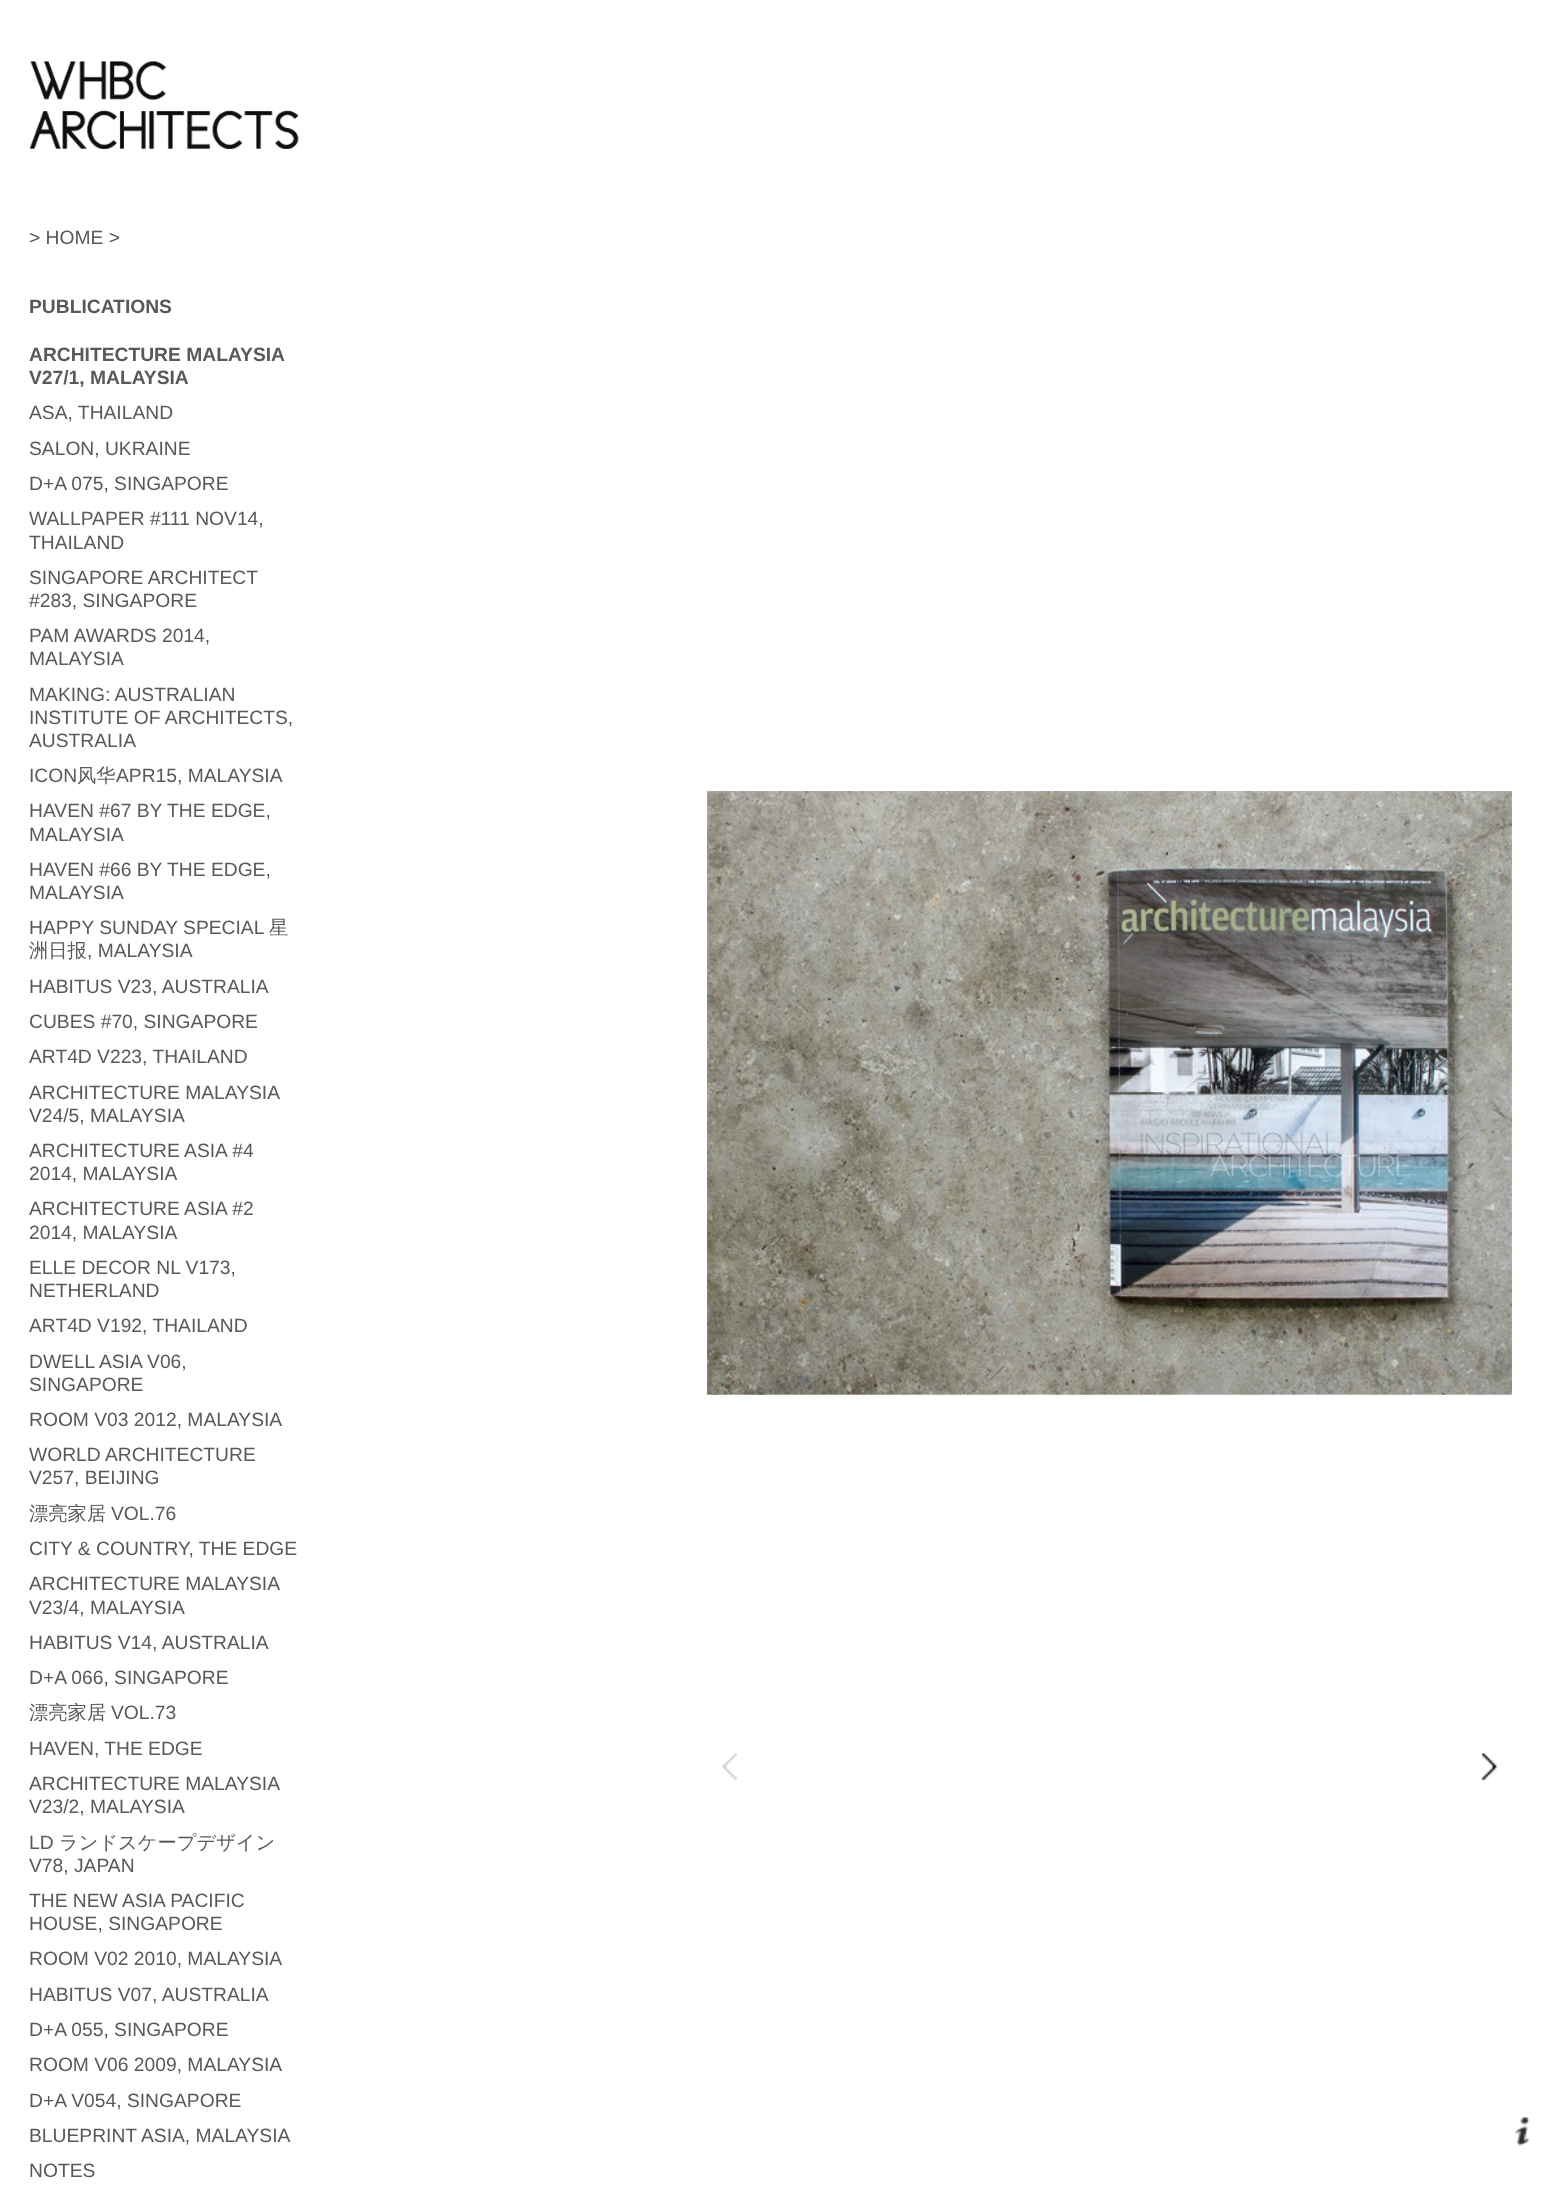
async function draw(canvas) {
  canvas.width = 1563;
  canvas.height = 2187;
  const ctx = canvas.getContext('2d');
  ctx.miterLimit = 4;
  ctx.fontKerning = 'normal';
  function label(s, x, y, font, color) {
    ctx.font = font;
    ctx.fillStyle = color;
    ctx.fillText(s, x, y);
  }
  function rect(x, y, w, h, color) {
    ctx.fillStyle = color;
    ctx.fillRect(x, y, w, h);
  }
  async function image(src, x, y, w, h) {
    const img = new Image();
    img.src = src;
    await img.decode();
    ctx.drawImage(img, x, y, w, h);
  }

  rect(0, 0, 1563, 2187, '#fff');
  await image('assets/img1.png', 29, 61, 270, 88);
  label('> HOME >', 29, 244, '19.25px Liberation Sans', '#58595b');
  label('PUBLICATIONS', 29, 313, 'bold 19.25px Liberation Sans', '#58595b');
  label('ARCHITECTURE MALAYSIA', 29, 361, 'bold 19.25px Liberation Sans', '#58595b');
  label('V27/1, MALAYSIA', 29, 384, 'bold 19.25px Liberation Sans', '#58595b');
  label('ASA, THAILAND', 29, 419, '19.25px Liberation Sans', '#58595b');
  label('SALON, UKRAINE', 29, 455, '19.25px Liberation Sans', '#58595b');
  label('D+A 075, SINGAPORE', 29, 490, '19.25px Liberation Sans', '#58595b');
  label('WALLPAPER #111 NOV14,', 29, 525, '19.25px Liberation Sans', '#58595b');
  label('THAILAND', 29, 549, '19.25px Liberation Sans', '#58595b');
  label('SINGAPORE ARCHITECT', 29, 584, '19.25px Liberation Sans', '#58595b');
  label('#283, SINGAPORE', 29, 607, '19.25px Liberation Sans', '#58595b');
  label('PAM AWARDS 2014,', 29, 642, '19.25px Liberation Sans', '#58595b');
  label('MALAYSIA', 29, 665, '19.25px Liberation Sans', '#58595b');
  label('MAKING: AUSTRALIAN', 29, 701, '19.25px Liberation Sans', '#58595b');
  label('INSTITUTE OF ARCHITECTS,', 29, 724, '19.25px Liberation Sans', '#58595b');
  label('AUSTRALIA', 29, 747, '19.25px Liberation Sans', '#58595b');
  label('ICON', 29, 782, '19.25px Liberation Sans', '#58595b');
  label('风华', 77, 782, '500 19.25px WenQuanYi Zen Hei', '#58595b');
  label('APR15, MALAYSIA', 116, 782, '19.25px Liberation Sans', '#58595b');
  label('HAVEN #67 BY THE EDGE,', 29, 817, '19.25px Liberation Sans', '#58595b');
  label('MALAYSIA', 29, 841, '19.25px Liberation Sans', '#58595b');
  label('HAVEN #66 BY THE EDGE,', 29, 876, '19.25px Liberation Sans', '#58595b');
  label('MALAYSIA', 29, 899, '19.25px Liberation Sans', '#58595b');
  label('HAPPY SUNDAY SPECIAL', 29, 934, '19.25px Liberation Sans', '#58595b');
  label('星', 269, 934, '500 19.25px WenQuanYi Zen Hei', '#58595b');
  label('洲日报', 29, 957, '500 19.25px WenQuanYi Zen Hei', '#58595b');
  label(', MALAYSIA', 87, 957, '19.25px Liberation Sans', '#58595b');
  label('HABITUS V23, AUSTRALIA', 29, 993, '19.25px Liberation Sans', '#58595b');
  label('CUBES #70, SINGAPORE', 29, 1028, '19.25px Liberation Sans', '#58595b');
  label('ART4D V223, THAILAND', 29, 1063, '19.25px Liberation Sans', '#58595b');
  label('ARCHITECTURE MALAYSIA', 29, 1099, '19.25px Liberation Sans', '#58595b');
  label('V24/5, MALAYSIA', 29, 1122, '19.25px Liberation Sans', '#58595b');
  label('ARCHITECTURE ASIA #4', 29, 1157, '19.25px Liberation Sans', '#58595b');
  label('2014, MALAYSIA', 29, 1180, '19.25px Liberation Sans', '#58595b');
  label('ARCHITECTURE ASIA #2', 29, 1215, '19.25px Liberation Sans', '#58595b');
  label('2014, MALAYSIA', 29, 1239, '19.25px Liberation Sans', '#58595b');
  label('ELLE DECOR NL V173,', 29, 1274, '19.25px Liberation Sans', '#58595b');
  label('NETHERLAND', 29, 1297, '19.25px Liberation Sans', '#58595b');
  label('ART4D V192, THAILAND', 29, 1332, '19.25px Liberation Sans', '#58595b');
  label('DWELL ASIA V06,', 29, 1368, '19.25px Liberation Sans', '#58595b');
  label('SINGAPORE', 29, 1391, '19.25px Liberation Sans', '#58595b');
  label('ROOM V03 2012, MALAYSIA', 29, 1426, '19.25px Liberation Sans', '#58595b');
  label('WORLD ARCHITECTURE', 29, 1461, '19.25px Liberation Sans', '#58595b');
  label('V257, BEIJING', 29, 1484, '19.25px Liberation Sans', '#58595b');
  label('漂亮家居', 29, 1520, '500 19.25px WenQuanYi Zen Hei', '#58595b');
  label('VOL.76', 111, 1520, '19.25px Liberation Sans', '#58595b');
  label('CITY & COUNTRY, THE EDGE', 29, 1555, '19.25px Liberation Sans', '#58595b');
  label('ARCHITECTURE MALAYSIA', 29, 1590, '19.25px Liberation Sans', '#58595b');
  label('V23/4, MALAYSIA', 29, 1614, '19.25px Liberation Sans', '#58595b');
  label('HABITUS V14, AUSTRALIA', 29, 1649, '19.25px Liberation Sans', '#58595b');
  label('D+A 066, SINGAPORE', 29, 1684, '19.25px Liberation Sans', '#58595b');
  label('漂亮家居', 29, 1719, '500 19.25px WenQuanYi Zen Hei', '#58595b');
  label('VOL.73', 111, 1719, '19.25px Liberation Sans', '#58595b');
  label('HAVEN, THE EDGE', 29, 1755, '19.25px Liberation Sans', '#58595b');
  label('ARCHITECTURE MALAYSIA', 29, 1790, '19.25px Liberation Sans', '#58595b');
  label('V23/2, MALAYSIA', 29, 1813, '19.25px Liberation Sans', '#58595b');
  label('LD', 29, 1849, '19.25px Liberation Sans', '#58595b');
  label('ランドスケープデザイン', 59, 1849, '500 19.25px WenQuanYi Zen Hei', '#58595b');
  label('V78, JAPAN', 29, 1872, '19.25px Liberation Sans', '#58595b');
  label('THE NEW ASIA PACIFIC', 29, 1907, '19.25px Liberation Sans', '#58595b');
  label('HOUSE, SINGAPORE', 29, 1930, '19.25px Liberation Sans', '#58595b');
  label('ROOM V02 2010, MALAYSIA', 29, 1965, '19.25px Liberation Sans', '#58595b');
  label('HABITUS V07, AUSTRALIA', 29, 2001, '19.25px Liberation Sans', '#58595b');
  label('D+A 055, SINGAPORE', 29, 2036, '19.25px Liberation Sans', '#58595b');
  label('ROOM V06 2009, MALAYSIA', 29, 2071, '19.25px Liberation Sans', '#58595b');
  label('D+A V054, SINGAPORE', 29, 2107, '19.25px Liberation Sans', '#58595b');
  label('BLUEPRINT ASIA, MALAYSIA', 29, 2142, '19.25px Liberation Sans', '#58595b');
  label('NOTES', 29, 2177, '19.25px Liberation Sans', '#58595b');
  await image('assets/img2.png', 707, 791, 805, 604);
  await image('assets/img3.png', 722, 1753, 16, 27);
  await image('assets/img4.png', 1481, 1753, 16, 28);
  await image('assets/img5.png', 1515, 2117, 15, 29);
}

draw(document.querySelector('canvas'));
